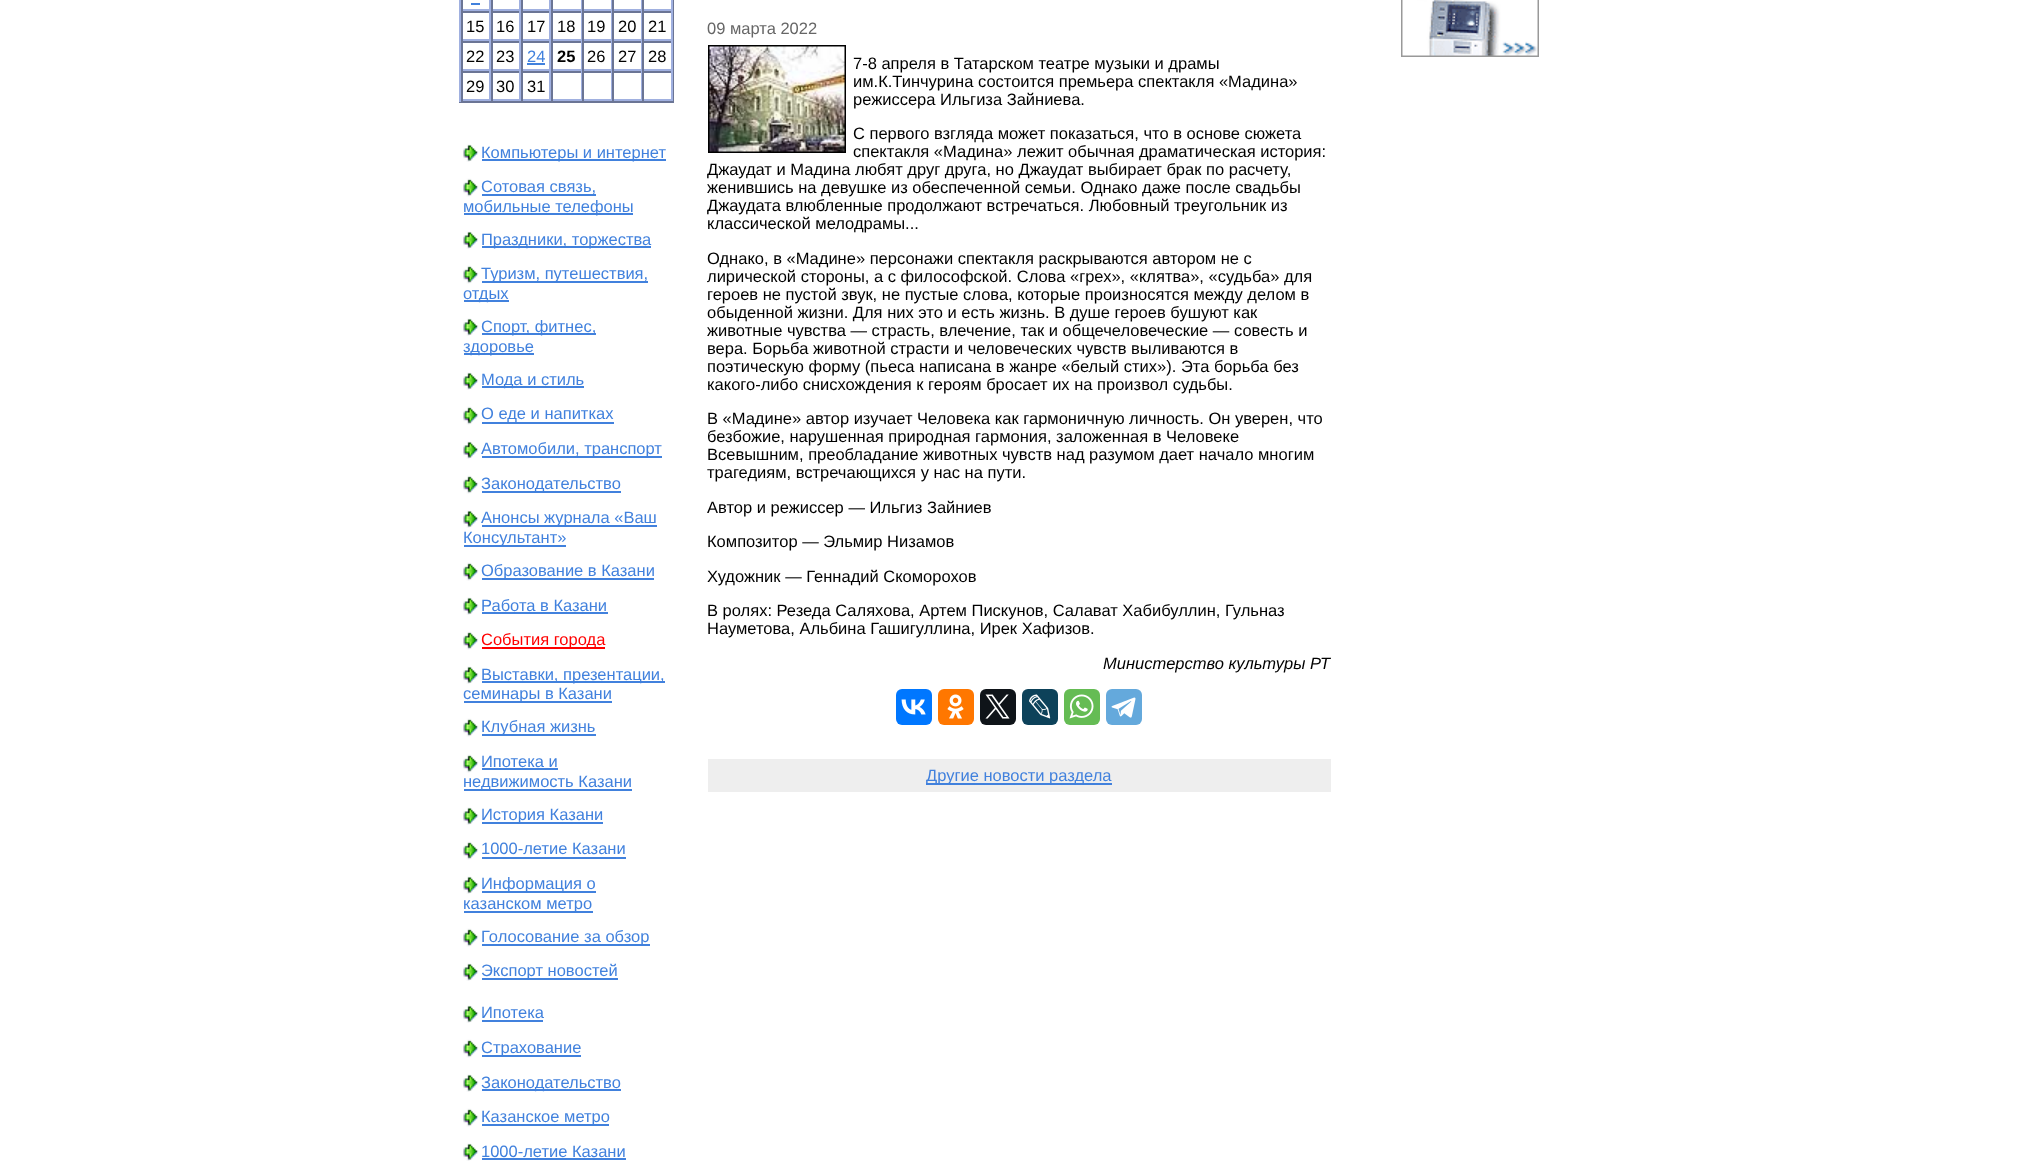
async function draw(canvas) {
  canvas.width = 2035;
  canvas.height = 1161;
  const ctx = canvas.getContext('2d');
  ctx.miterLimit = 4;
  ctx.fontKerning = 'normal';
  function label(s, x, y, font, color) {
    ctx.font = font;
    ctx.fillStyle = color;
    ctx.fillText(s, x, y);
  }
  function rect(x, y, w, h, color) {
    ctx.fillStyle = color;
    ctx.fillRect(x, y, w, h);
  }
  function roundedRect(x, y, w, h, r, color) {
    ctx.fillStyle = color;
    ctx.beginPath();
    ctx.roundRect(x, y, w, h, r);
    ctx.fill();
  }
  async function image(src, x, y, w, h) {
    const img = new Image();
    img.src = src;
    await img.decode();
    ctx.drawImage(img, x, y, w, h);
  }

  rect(0, 0, 2035, 1161, '#fff');
  rect(673, 0, 1, 102, '#6b7595');
  rect(459, 101, 215, 2, '#6b7595');
  rect(459, 0, 2, 102, '#a0b0e0');
  rect(489, 0, 2, 11, '#a0b0e0');
  rect(461, 9, 30, 2, '#a0b0e0');
  rect(461, 0, 2, 11, '#6b7595');
  rect(471, 3, 9, 2, '#4181dd');
  rect(519, 0, 2, 11, '#a0b0e0');
  rect(491, 9, 30, 2, '#a0b0e0');
  rect(491, 0, 2, 11, '#6b7595');
  rect(549, 0, 2, 11, '#a0b0e0');
  rect(521, 9, 30, 2, '#a0b0e0');
  rect(521, 0, 2, 11, '#6b7595');
  rect(581, 0, 1, 11, '#a0b0e0');
  rect(551, 9, 31, 2, '#a0b0e0');
  rect(551, 0, 2, 11, '#6b7595');
  rect(611, 0, 1, 11, '#a0b0e0');
  rect(582, 9, 30, 2, '#a0b0e0');
  rect(582, 0, 2, 11, '#6b7595');
  rect(641, 0, 1, 11, '#a0b0e0');
  rect(612, 9, 30, 2, '#a0b0e0');
  rect(612, 0, 2, 11, '#6b7595');
  rect(671, 0, 2, 11, '#a0b0e0');
  rect(642, 9, 30, 2, '#a0b0e0');
  rect(642, 0, 2, 11, '#6b7595');
  rect(461, 11, 211, 2, '#6b7595');
  rect(489, 11, 2, 30, '#a0b0e0');
  rect(461, 39, 30, 2, '#a0b0e0');
  rect(461, 11, 2, 30, '#6b7595');
  label('15', 466, 32, '16.5px Liberation Sans', '#000');
  rect(519, 11, 2, 30, '#a0b0e0');
  rect(491, 39, 30, 2, '#a0b0e0');
  rect(491, 11, 2, 30, '#6b7595');
  label('16', 496, 32, '16.5px Liberation Sans', '#000');
  rect(549, 11, 2, 30, '#a0b0e0');
  rect(521, 39, 30, 2, '#a0b0e0');
  rect(521, 11, 2, 30, '#6b7595');
  label('17', 527, 32, '16.5px Liberation Sans', '#000');
  rect(581, 11, 1, 30, '#a0b0e0');
  rect(551, 39, 31, 2, '#a0b0e0');
  rect(551, 11, 2, 30, '#6b7595');
  label('18', 557, 32, '16.5px Liberation Sans', '#000');
  rect(611, 11, 1, 30, '#a0b0e0');
  rect(582, 39, 30, 2, '#a0b0e0');
  rect(582, 11, 2, 30, '#6b7595');
  label('19', 587, 32, '16.5px Liberation Sans', '#000');
  rect(641, 11, 1, 30, '#a0b0e0');
  rect(612, 39, 30, 2, '#a0b0e0');
  rect(612, 11, 2, 30, '#6b7595');
  label('20', 618, 32, '16.5px Liberation Sans', '#000');
  rect(671, 11, 2, 30, '#a0b0e0');
  rect(642, 39, 30, 2, '#a0b0e0');
  rect(642, 11, 2, 30, '#6b7595');
  label('21', 648, 32, '16.5px Liberation Sans', '#000');
  rect(461, 41, 211, 2, '#6b7595');
  rect(489, 41, 2, 30, '#a0b0e0');
  rect(461, 69, 30, 2, '#a0b0e0');
  rect(461, 41, 2, 30, '#6b7595');
  label('22', 466, 62, '16.5px Liberation Sans', '#000');
  rect(519, 41, 2, 30, '#a0b0e0');
  rect(491, 69, 30, 2, '#a0b0e0');
  rect(491, 41, 2, 30, '#6b7595');
  label('23', 496, 62, '16.5px Liberation Sans', '#000');
  rect(549, 41, 2, 30, '#a0b0e0');
  rect(521, 69, 30, 2, '#a0b0e0');
  rect(521, 41, 2, 30, '#6b7595');
  label('24', 527, 62, '16.5px Liberation Sans', '#4181dd');
  rect(527, 63, 18, 2, '#4181dd');
  rect(581, 41, 1, 30, '#a0b0e0');
  rect(551, 69, 31, 2, '#a0b0e0');
  rect(551, 41, 2, 30, '#6b7595');
  label('25', 557, 62, 'bold 16.5px Liberation Sans', '#000');
  rect(611, 41, 1, 30, '#a0b0e0');
  rect(582, 69, 30, 2, '#a0b0e0');
  rect(582, 41, 2, 30, '#6b7595');
  label('26', 587, 62, '16.5px Liberation Sans', '#000');
  rect(641, 41, 1, 30, '#a0b0e0');
  rect(612, 69, 30, 2, '#a0b0e0');
  rect(612, 41, 2, 30, '#6b7595');
  label('27', 618, 62, '16.5px Liberation Sans', '#000');
  rect(671, 41, 2, 30, '#a0b0e0');
  rect(642, 69, 30, 2, '#a0b0e0');
  rect(642, 41, 2, 30, '#6b7595');
  label('28', 648, 62, '16.5px Liberation Sans', '#000');
  rect(461, 71, 211, 2, '#6b7595');
  rect(489, 71, 2, 30, '#a0b0e0');
  rect(461, 99, 30, 2, '#a0b0e0');
  rect(461, 71, 2, 30, '#6b7595');
  label('29', 466, 92, '16.5px Liberation Sans', '#000');
  rect(519, 71, 2, 30, '#a0b0e0');
  rect(491, 99, 30, 2, '#a0b0e0');
  rect(491, 71, 2, 30, '#6b7595');
  label('30', 496, 92, '16.5px Liberation Sans', '#000');
  rect(549, 71, 2, 30, '#a0b0e0');
  rect(521, 99, 30, 2, '#a0b0e0');
  rect(521, 71, 2, 30, '#6b7595');
  label('31', 527, 92, '16.5px Liberation Sans', '#000');
  rect(581, 71, 1, 30, '#a0b0e0');
  rect(551, 99, 31, 2, '#a0b0e0');
  rect(551, 71, 2, 30, '#6b7595');
  rect(611, 71, 1, 30, '#a0b0e0');
  rect(582, 99, 30, 2, '#a0b0e0');
  rect(582, 71, 2, 30, '#6b7595');
  rect(641, 71, 1, 30, '#a0b0e0');
  rect(612, 99, 30, 2, '#a0b0e0');
  rect(612, 71, 2, 30, '#6b7595');
  rect(671, 71, 2, 30, '#a0b0e0');
  rect(642, 99, 30, 2, '#a0b0e0');
  rect(642, 71, 2, 30, '#6b7595');
  await image('assets/img1.png', 463, 144, 16, 18);
  rect(482, 159, 184, 2, '#4181dd');
  label('Компьютеры и интернет', 481, 158, '16.5px Liberation Sans', '#4181dd');
  await image('assets/img2.png', 463, 178, 16, 19);
  rect(482, 194, 114, 2, '#4181dd');
  label('Сотовая связь,', 481, 192, '16.5px Liberation Sans', '#4181dd');
  rect(464, 213, 169, 2, '#4181dd');
  label('мобильные телефоны', 463, 212, '16.5px Liberation Sans', '#4181dd');
  await image('assets/img1.png', 463, 231, 16, 18);
  rect(482, 246, 169, 2, '#4181dd');
  label('Праздники, торжества', 481, 245, '16.5px Liberation Sans', '#4181dd');
  await image('assets/img2.png', 463, 265, 16, 19);
  rect(482, 281, 166, 2, '#4181dd');
  label('Туризм, путешествия,', 481, 279, '16.5px Liberation Sans', '#4181dd');
  rect(464, 300, 45, 2, '#4181dd');
  label('отдых', 463, 299, '16.5px Liberation Sans', '#4181dd');
  await image('assets/img1.png', 463, 318, 16, 18);
  rect(482, 333, 114, 2, '#4181dd');
  label('Спорт, фитнес,', 481, 332, '16.5px Liberation Sans', '#4181dd');
  rect(464, 353, 70, 2, '#4181dd');
  label('здоровье', 463, 352, '16.5px Liberation Sans', '#4181dd');
  await image('assets/img1.png', 463, 372, 16, 18);
  rect(482, 386, 102, 2, '#4181dd');
  label('Мода и стиль', 481, 385, '16.5px Liberation Sans', '#4181dd');
  await image('assets/img2.png', 463, 406, 16, 19);
  rect(482, 422, 132, 2, '#4181dd');
  label('О еде и напитках', 481, 419, '16.5px Liberation Sans', '#4181dd');
  await image('assets/img1.png', 463, 441, 16, 18);
  rect(482, 456, 180, 2, '#4181dd');
  label('Автомобили, транспорт', 481, 454, '16.5px Liberation Sans', '#4181dd');
  await image('assets/img2.png', 463, 475, 16, 19);
  rect(482, 491, 139, 2, '#4181dd');
  label('Законодательство', 481, 489, '16.5px Liberation Sans', '#4181dd');
  await image('assets/img1.png', 463, 510, 16, 18);
  rect(482, 525, 175, 2, '#4181dd');
  label('Анонсы журнала «Ваш', 481, 523, '16.5px Liberation Sans', '#4181dd');
  rect(464, 545, 102, 2, '#4181dd');
  label('Консультант»', 463, 543, '16.5px Liberation Sans', '#4181dd');
  await image('assets/img2.png', 463, 562, 16, 19);
  rect(482, 578, 172, 2, '#4181dd');
  label('Образование в Казани', 481, 576, '16.5px Liberation Sans', '#4181dd');
  await image('assets/img1.png', 463, 597, 16, 18);
  label('Работа в Казани', 481, 611, '16.5px Liberation Sans', '#4181dd');
  rect(482, 612, 126, 2, '#4181dd');
  await image('assets/img2.png', 463, 631, 16, 19);
  rect(482, 647, 123, 2, '#f00');
  label('События города', 481, 645, '16.5px Liberation Sans', '#f00');
  await image('assets/img1.png', 463, 666, 16, 18);
  rect(482, 681, 183, 2, '#4181dd');
  label('Выставки, презентации,', 481, 680, '16.5px Liberation Sans', '#4181dd');
  rect(464, 701, 148, 2, '#4181dd');
  label('семинары в Казани', 463, 699, '16.5px Liberation Sans', '#4181dd');
  await image('assets/img2.png', 463, 718, 16, 19);
  rect(482, 734, 114, 2, '#4181dd');
  label('Клубная жизнь', 481, 732, '16.5px Liberation Sans', '#4181dd');
  await image('assets/img2.png', 463, 754, 16, 19);
  label('Ипотека и', 481, 767, '16.5px Liberation Sans', '#4181dd');
  rect(482, 768, 76, 2, '#4181dd');
  rect(464, 789, 168, 2, '#4181dd');
  label('недвижимость Казани', 463, 787, '16.5px Liberation Sans', '#4181dd');
  await image('assets/img1.png', 463, 807, 16, 18);
  rect(482, 822, 121, 2, '#4181dd');
  label('История Казани', 481, 820, '16.5px Liberation Sans', '#4181dd');
  await image('assets/img2.png', 463, 841, 16, 19);
  label('1000-летие Казани', 481, 854, '16.5px Liberation Sans', '#4181dd');
  rect(482, 857, 144, 2, '#4181dd');
  await image('assets/img1.png', 463, 876, 16, 18);
  rect(482, 891, 114, 2, '#4181dd');
  label('Информация о', 481, 889, '16.5px Liberation Sans', '#4181dd');
  rect(464, 911, 129, 2, '#4181dd');
  label('казанском метро', 463, 909, '16.5px Liberation Sans', '#4181dd');
  await image('assets/img2.png', 463, 928, 16, 19);
  rect(482, 944, 168, 2, '#4181dd');
  label('Голосование за обзор', 481, 942, '16.5px Liberation Sans', '#4181dd');
  await image('assets/img1.png', 463, 963, 16, 18);
  rect(482, 978, 136, 2, '#4181dd');
  label('Экспорт новостей', 481, 976, '16.5px Liberation Sans', '#4181dd');
  await image('assets/img1.png', 463, 1005, 16, 18);
  label('Ипотека', 481, 1018, '16.5px Liberation Sans', '#4181dd');
  rect(482, 1020, 61, 2, '#4181dd');
  await image('assets/img2.png', 463, 1039, 16, 19);
  rect(482, 1055, 99, 2, '#4181dd');
  label('Страхование', 481, 1053, '16.5px Liberation Sans', '#4181dd');
  await image('assets/img1.png', 463, 1074, 16, 18);
  rect(482, 1089, 139, 2, '#4181dd');
  label('Законодательство', 481, 1088, '16.5px Liberation Sans', '#4181dd');
  await image('assets/img2.png', 463, 1108, 16, 19);
  rect(482, 1124, 127, 2, '#4181dd');
  label('Казанское метро', 481, 1122, '16.5px Liberation Sans', '#4181dd');
  await image('assets/img1.png', 463, 1143, 16, 18);
  label('1000-летие Казани', 481, 1157, '16.5px Liberation Sans', '#4181dd');
  rect(482, 1158, 144, 2, '#4181dd');
  label('09 марта 2022', 707, 34, '16.5px Liberation Sans', '#666');
  ctx.strokeStyle = '#000';
  ctx.lineWidth = 2;
  ctx.strokeRect(709, 46, 136, 106);
  await image('assets/img3.png', 709, 46, 136, 106);
  label('7-8 апреля в Татарском театре музыки и драмы', 853, 69, '16.5px Liberation Sans', '#000');
  label('им.К.Тинчурина состоится премьера спектакля «Мадина»', 853, 87, '16.5px Liberation Sans', '#000');
  label('режиссера Ильгиза Зайниева.', 853, 105, '16.5px Liberation Sans', '#000');
  label('С первого взгляда может показаться, что в основе сюжета', 853, 139, '16.5px Liberation Sans', '#000');
  label('спектакля «Мадина» лежит обычная драматическая история:', 853, 157, '16.5px Liberation Sans', '#000');
  label('Джаудат и Мадина любят друг друга, но Джаудат выбирает брак по расчету,', 707, 175, '16.5px Liberation Sans', '#000');
  label('женившись на девушке из обеспеченной семьи. Однако даже после свадьбы', 707, 193, '16.5px Liberation Sans', '#000');
  label('Джаудата влюбленные продолжают встречаться. Любовный треугольник из', 707, 211, '16.5px Liberation Sans', '#000');
  label('классической мелодрамы...', 707, 229, '16.5px Liberation Sans', '#000');
  label('Однако, в «Мадине» персонажи спектакля раскрываются автором не с', 707, 264, '16.5px Liberation Sans', '#000');
  label('лирической стороны, а с философской. Слова «грех», «клятва», «судьба» для', 707, 282, '16.5px Liberation Sans', '#000');
  label('героев не пустой звук, не пустые слова, которые произносятся между делом в', 707, 300, '16.5px Liberation Sans', '#000');
  label('обыденной жизни. Для них это и есть жизнь. В душе героев бушуют как', 707, 318, '16.5px Liberation Sans', '#000');
  label('животные чувства — страсть, влечение, так и общечеловеческие — совесть и', 707, 336, '16.5px Liberation Sans', '#000');
  label('вера. Борьба животной страсти и человеческих чувств выливаются в', 707, 354, '16.5px Liberation Sans', '#000');
  label('поэтическую форму (пьеса написана в жанре «белый стих»). Эта борьба без', 707, 372, '16.5px Liberation Sans', '#000');
  label('какого-либо снисхождения к героям бросает их на произвол судьбы.', 707, 390, '16.5px Liberation Sans', '#000');
  label('В «Мадине» автор изучает Человека как гармоничную личность. Он уверен, что', 707, 424, '16.5px Liberation Sans', '#000');
  label('безбожие, нарушенная природная гармония, заложенная в Человеке', 707, 442, '16.5px Liberation Sans', '#000');
  label('Всевышним, преобладание животных чувств над разумом дает начало многим', 707, 460, '16.5px Liberation Sans', '#000');
  label('трагедиям, встречающихся у нас на пути.', 707, 478, '16.5px Liberation Sans', '#000');
  label('Автор и режиссер — Ильгиз Зайниев', 707, 513, '16.5px Liberation Sans', '#000');
  label('Композитор — Эльмир Низамов', 707, 547, '16.5px Liberation Sans', '#000');
  label('Художник — Геннадий Скоморохов', 707, 582, '16.5px Liberation Sans', '#000');
  label('В ролях: Резеда Саляхова, Артем Пискунов, Салават Хабибуллин, Гульназ', 707, 616, '16.5px Liberation Sans', '#000');
  label('Науметова, Альбина Гашигуллина, Ирек Хафизов.', 707, 634, '16.5px Liberation Sans', '#000');
  label('Министерство культуры РТ', 1103, 669, 'italic 16.5px Liberation Sans', '#000');
  roundedRect(896, 689, 36, 36, 6, '#07f');
  await image('assets/img4.png', 901, 699, 25, 16);
  roundedRect(938, 689, 36, 36, 6, '#f70');
  await image('assets/img5.png', 947, 694, 17, 25);
  roundedRect(980, 689, 36, 36, 6, '#0f1419');
  await image('assets/img6.png', 985, 694, 25, 25);
  roundedRect(1022, 689, 36, 36, 6, '#0d425a');
  await image('assets/img7.png', 1029, 694, 22, 25);
  roundedRect(1064, 689, 36, 36, 6, '#65bc54');
  await image('assets/img8.png', 1069, 694, 25, 25);
  roundedRect(1106, 689, 36, 36, 6, '#64a9dc');
  await image('assets/img9.png', 1111, 697, 25, 21);
  rect(708, 759, 623, 33, '#eee');
  rect(926, 783, 186, 2, '#4181dd');
  label('Другие новости раздела', 926, 781, '16.5px Liberation Sans', '#4181dd');
  ctx.strokeStyle = '#999';
  ctx.strokeRect(1402, -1, 136, 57);
  await image('assets/img10.png', 1402, 0, 136, 56);
}

draw(document.querySelector('canvas'));
